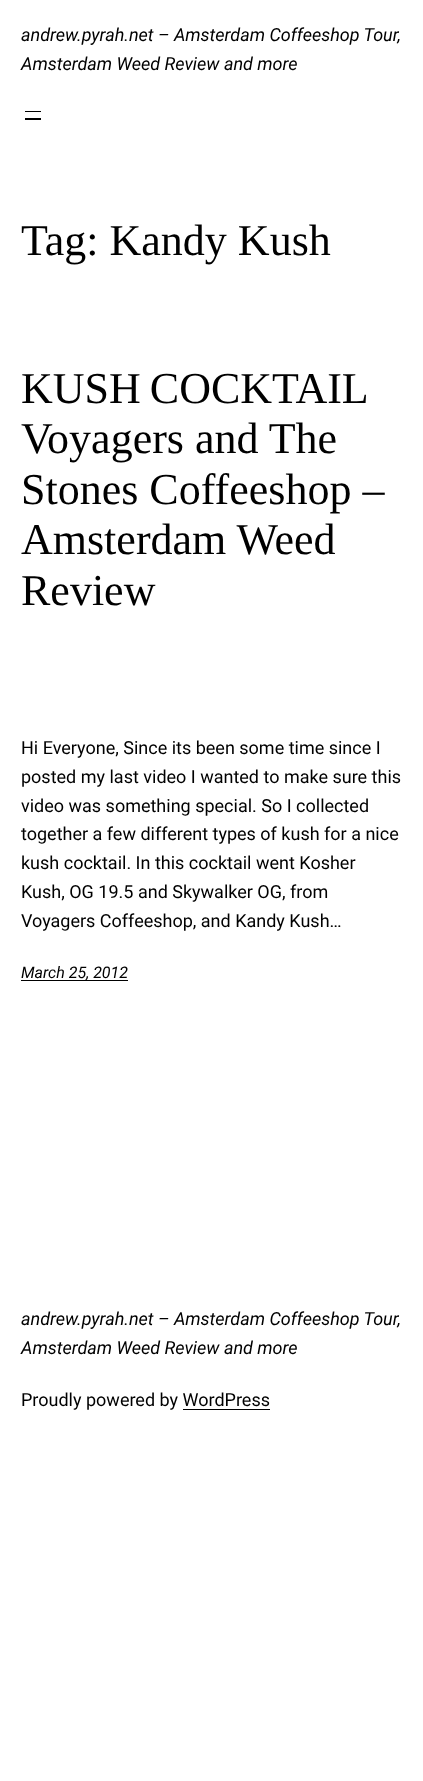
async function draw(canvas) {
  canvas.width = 423;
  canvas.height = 1781;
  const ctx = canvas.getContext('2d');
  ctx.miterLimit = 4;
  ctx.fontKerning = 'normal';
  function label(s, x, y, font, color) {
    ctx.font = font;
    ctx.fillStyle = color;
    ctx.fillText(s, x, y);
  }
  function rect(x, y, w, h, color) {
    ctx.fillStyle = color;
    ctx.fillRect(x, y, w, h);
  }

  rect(0, 0, 423, 1781, '#fff');
  label('andrew.pyrah.net – Amsterdam Coffeeshop Tour,', 21, 41, 'italic 18px Roboto', '#000');
  label('Amsterdam Weed Review and more', 21, 70, 'italic 18px Roboto', '#000');
  rect(25, 111, 16, 1, '#000');
  rect(25, 118, 16, 2, '#000');
  label('Tag: Kandy Kush', 21, 255, '44px Liberation Serif', '#000');
  ctx.wordSpacing = '-2px';
  label('KUSH COCKTAIL', 21, 403, '44px Liberation Serif', '#000');
  ctx.wordSpacing = '0px';
  label('Voyagers and The', 21, 453, '44px Liberation Serif', '#000');
  label('Stones Coffeeshop –', 21, 504, '44px Liberation Serif', '#000');
  label('Amsterdam Weed', 21, 554, '44px Liberation Serif', '#000');
  label('Review', 21, 605, '44px Liberation Serif', '#000');
  label('Hi Everyone, Since its been some time since I', 21, 754, '18px Roboto', '#000');
  label('posted my last video I wanted to make sure this', 21, 783, '18px Roboto', '#000');
  label('video was something special. So I collected', 21, 812, '18px Roboto', '#000');
  label('together a few different types of kush for a nice', 21, 840, '18px Roboto', '#000');
  label('kush cocktail. In this cocktail went Kosher', 21, 869, '18px Roboto', '#000');
  label('Kush, OG 19.5 and Skywalker OG, from', 21, 898, '18px Roboto', '#000');
  label('Voyagers Coffeeshop, and Kandy Kush…', 21, 927, '18px Roboto', '#000');
  rect(21, 980, 107, 1, '#000');
  label('March 25, 2012', 21, 978, 'italic 16px Roboto', '#000');
  label('andrew.pyrah.net – Amsterdam Coffeeshop Tour,', 21, 1325, 'italic 18px Roboto', '#000');
  label('Amsterdam Weed Review and more', 21, 1354, 'italic 18px Roboto', '#000');
  label('Proudly powered by WordPress', 21, 1406, '18px Roboto', '#000');
  rect(183, 1409, 87, 1, '#000');
}

draw(document.querySelector('canvas'));
